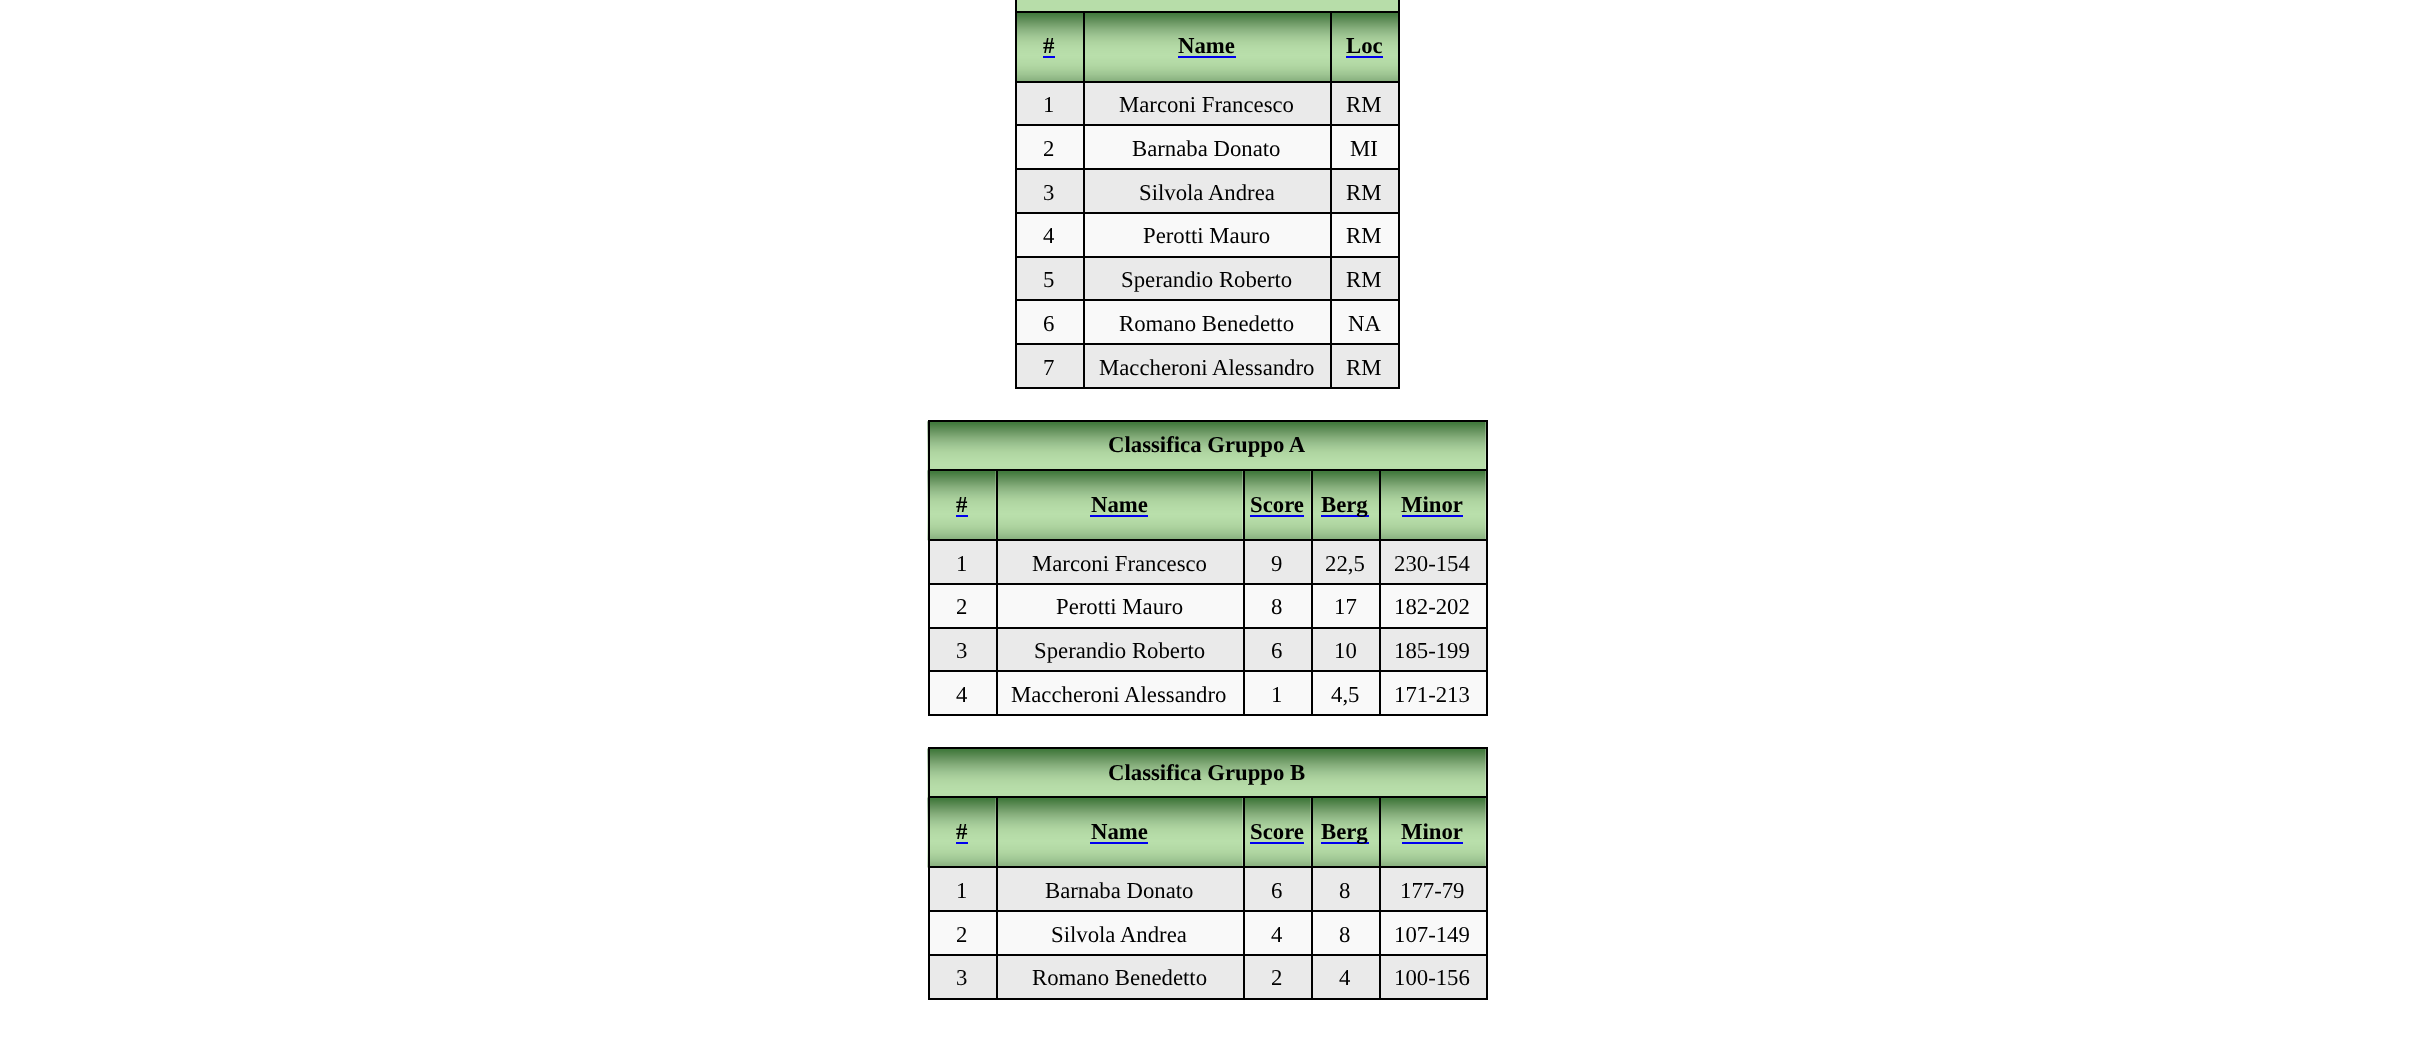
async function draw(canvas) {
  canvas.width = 2412;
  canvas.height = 1044;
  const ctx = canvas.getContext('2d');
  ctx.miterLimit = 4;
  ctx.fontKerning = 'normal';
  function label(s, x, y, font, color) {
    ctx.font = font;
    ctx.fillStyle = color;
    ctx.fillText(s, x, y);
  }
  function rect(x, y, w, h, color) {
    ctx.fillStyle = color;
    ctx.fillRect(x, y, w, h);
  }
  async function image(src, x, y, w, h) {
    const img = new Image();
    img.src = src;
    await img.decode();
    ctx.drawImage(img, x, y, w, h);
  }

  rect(0, 0, 2412, 1044, '#fff');
  rect(1398, 0, 2, 389, '#000');
  rect(1015, 387, 385, 2, '#000');
  rect(1015, 0, 2, 389, '#000');
  rect(1017, 0, 381, 11, '#b7dda9');
  await image('assets/img1.png', 1017, 13, 66, 68);
  rect(1330, 11, 70, 2, '#000');
  rect(1330, 81, 70, 2, '#000');
  rect(1330, 124, 70, 2, '#000');
  rect(1330, 168, 70, 2, '#000');
  rect(1330, 212, 70, 2, '#000');
  rect(1330, 256, 70, 2, '#000');
  rect(1330, 299, 70, 2, '#000');
  rect(1330, 343, 70, 2, '#000');
  rect(1330, 343, 2, 46, '#000');
  rect(1083, 343, 249, 2, '#000');
  rect(1330, 299, 2, 46, '#000');
  rect(1083, 299, 249, 2, '#000');
  rect(1330, 256, 2, 45, '#000');
  rect(1083, 256, 249, 2, '#000');
  rect(1330, 212, 2, 45, '#000');
  rect(1083, 212, 249, 2, '#000');
  rect(1330, 168, 2, 46, '#000');
  rect(1083, 168, 249, 2, '#000');
  rect(1330, 124, 2, 46, '#000');
  rect(1083, 124, 249, 2, '#000');
  rect(1330, 81, 2, 45, '#000');
  rect(1083, 81, 249, 2, '#000');
  rect(1330, 11, 2, 71, '#000');
  rect(1083, 11, 249, 2, '#000');
  rect(1083, 343, 2, 46, '#000');
  rect(1015, 343, 70, 2, '#000');
  rect(1083, 299, 2, 46, '#000');
  rect(1015, 299, 70, 2, '#000');
  rect(1083, 256, 2, 45, '#000');
  rect(1015, 256, 70, 2, '#000');
  rect(1083, 212, 2, 45, '#000');
  rect(1015, 212, 70, 2, '#000');
  rect(1083, 168, 2, 46, '#000');
  rect(1015, 168, 70, 2, '#000');
  rect(1083, 124, 2, 46, '#000');
  rect(1015, 124, 70, 2, '#000');
  rect(1083, 81, 2, 45, '#000');
  rect(1015, 81, 70, 2, '#000');
  rect(1083, 11, 2, 71, '#000');
  rect(1015, 11, 70, 2, '#000');
  label('#', 1043, 53, 'bold 22.75px Liberation Serif', '#000');
  rect(1043, 56, 12, 2, '#00e');
  await image('assets/img2.png', 1085, 13, 245, 68);
  label('Name', 1178, 53, 'bold 22.75px Liberation Serif', '#000');
  rect(1178, 56, 58, 2, '#00e');
  await image('assets/img1.png', 1332, 13, 66, 68);
  label('Loc', 1346, 53, 'bold 22.75px Liberation Serif', '#000');
  rect(1346, 56, 37, 2, '#00e');
  rect(1017, 83, 66, 41, '#eaeaea');
  label('1', 1043, 112, '22.75px Liberation Serif', '#000');
  rect(1085, 83, 245, 41, '#eaeaea');
  label('Marconi Francesco', 1119, 112, '22.75px Liberation Serif', '#000');
  rect(1332, 83, 66, 41, '#eaeaea');
  label('RM', 1346, 112, '22.75px Liberation Serif', '#000');
  rect(1017, 126, 66, 42, '#f9f9f9');
  label('2', 1043, 156, '22.75px Liberation Serif', '#000');
  rect(1085, 126, 245, 42, '#f9f9f9');
  label('Barnaba Donato', 1132, 156, '22.75px Liberation Serif', '#000');
  rect(1332, 126, 66, 42, '#f9f9f9');
  label('MI', 1350, 156, '22.75px Liberation Serif', '#000');
  rect(1017, 170, 66, 42, '#eaeaea');
  label('3', 1043, 200, '22.75px Liberation Serif', '#000');
  rect(1085, 170, 245, 42, '#eaeaea');
  label('Silvola Andrea', 1139, 200, '22.75px Liberation Serif', '#000');
  rect(1332, 170, 66, 42, '#eaeaea');
  label('RM', 1346, 200, '22.75px Liberation Serif', '#000');
  rect(1017, 214, 66, 42, '#f9f9f9');
  label('4', 1043, 243, '22.75px Liberation Serif', '#000');
  rect(1085, 214, 245, 42, '#f9f9f9');
  label('Perotti Mauro', 1143, 243, '22.75px Liberation Serif', '#000');
  rect(1332, 214, 66, 42, '#f9f9f9');
  label('RM', 1346, 243, '22.75px Liberation Serif', '#000');
  rect(1017, 258, 66, 41, '#eaeaea');
  label('5', 1043, 287, '22.75px Liberation Serif', '#000');
  rect(1085, 258, 245, 41, '#eaeaea');
  label('Sperandio Roberto', 1121, 287, '22.75px Liberation Serif', '#000');
  rect(1332, 258, 66, 41, '#eaeaea');
  label('RM', 1346, 287, '22.75px Liberation Serif', '#000');
  rect(1017, 301, 66, 42, '#f9f9f9');
  label('6', 1043, 331, '22.75px Liberation Serif', '#000');
  rect(1085, 301, 245, 42, '#f9f9f9');
  label('Romano Benedetto', 1119, 331, '22.75px Liberation Serif', '#000');
  rect(1332, 301, 66, 42, '#f9f9f9');
  label('NA', 1348, 331, '22.75px Liberation Serif', '#000');
  rect(1017, 345, 66, 42, '#eaeaea');
  label('7', 1043, 375, '22.75px Liberation Serif', '#000');
  rect(1085, 345, 245, 42, '#eaeaea');
  label('Maccheroni Alessandro', 1099, 375, '22.75px Liberation Serif', '#000');
  rect(1332, 345, 66, 42, '#eaeaea');
  label('RM', 1346, 375, '22.75px Liberation Serif', '#000');
  await image('assets/img3.png', 927, 421, 559, 50);
  rect(928, 420, 560, 2, '#000');
  rect(1486, 420, 2, 296, '#000');
  rect(928, 714, 560, 2, '#000');
  await image('assets/img4.png', 927, 470, 69, 71);
  rect(928, 420, 2, 296, '#000');
  label('Classifica Gruppo A', 1108, 452, 'bold 22.75px Liberation Serif', '#000');
  rect(1379, 469, 109, 2, '#000');
  rect(1379, 539, 109, 2, '#000');
  rect(1379, 583, 109, 2, '#000');
  rect(1379, 627, 109, 2, '#000');
  rect(1379, 670, 109, 2, '#000');
  rect(1379, 670, 2, 46, '#000');
  rect(1311, 670, 70, 2, '#000');
  rect(1379, 627, 2, 45, '#000');
  rect(1311, 627, 70, 2, '#000');
  rect(1379, 583, 2, 45, '#000');
  rect(1311, 583, 70, 2, '#000');
  rect(1379, 539, 2, 46, '#000');
  rect(1311, 539, 70, 2, '#000');
  rect(1379, 469, 2, 72, '#000');
  rect(1311, 469, 70, 2, '#000');
  await image('assets/img5.png', 995, 471, 248, 68);
  await image('assets/img6.png', 1242, 471, 69, 68);
  await image('assets/img7.png', 1310, 471, 69, 68);
  rect(1311, 670, 2, 46, '#000');
  rect(1243, 670, 70, 2, '#000');
  rect(1311, 627, 2, 45, '#000');
  rect(1243, 627, 70, 2, '#000');
  rect(1311, 583, 2, 45, '#000');
  rect(1243, 583, 70, 2, '#000');
  rect(1311, 539, 2, 46, '#000');
  rect(1243, 539, 70, 2, '#000');
  rect(1311, 469, 2, 72, '#000');
  rect(1243, 469, 70, 2, '#000');
  rect(1243, 670, 2, 46, '#000');
  rect(996, 670, 248, 2, '#000');
  rect(1243, 627, 2, 45, '#000');
  rect(996, 627, 248, 2, '#000');
  rect(1243, 583, 2, 45, '#000');
  rect(996, 583, 248, 2, '#000');
  rect(1243, 539, 2, 46, '#000');
  rect(996, 539, 248, 2, '#000');
  rect(1243, 469, 2, 72, '#000');
  rect(996, 469, 248, 2, '#000');
  rect(996, 670, 2, 46, '#000');
  rect(928, 670, 70, 2, '#000');
  rect(996, 627, 2, 45, '#000');
  rect(928, 627, 70, 2, '#000');
  rect(996, 583, 2, 45, '#000');
  rect(928, 583, 70, 2, '#000');
  rect(996, 539, 2, 46, '#000');
  rect(928, 539, 70, 2, '#000');
  rect(996, 469, 2, 72, '#000');
  rect(928, 469, 70, 2, '#000');
  label('#', 956, 512, 'bold 22.75px Liberation Serif', '#000');
  rect(956, 515, 12, 2, '#00e');
  label('Name', 1091, 512, 'bold 22.75px Liberation Serif', '#000');
  rect(1090, 515, 58, 2, '#00e');
  label('Score', 1250, 512, 'bold 22.75px Liberation Serif', '#000');
  rect(1250, 515, 54, 2, '#00e');
  rect(1321, 515, 48, 2, '#00e');
  label('Berg', 1321, 512, 'bold 22.75px Liberation Serif', '#000');
  await image('assets/img8.png', 1381, 471, 105, 68);
  label('Minor', 1401, 512, 'bold 22.75px Liberation Serif', '#000');
  rect(1402, 515, 61, 2, '#00e');
  rect(930, 541, 66, 42, '#eaeaea');
  label('1', 956, 571, '22.75px Liberation Serif', '#000');
  rect(998, 541, 245, 42, '#eaeaea');
  label('Marconi Francesco', 1032, 571, '22.75px Liberation Serif', '#000');
  rect(1245, 541, 66, 42, '#eaeaea');
  label('9', 1271, 571, '22.75px Liberation Serif', '#000');
  rect(1313, 541, 66, 42, '#eaeaea');
  label('22,5', 1325, 571, '22.75px Liberation Serif', '#000');
  rect(1381, 541, 105, 42, '#eaeaea');
  label('230-154', 1394, 571, '22.75px Liberation Serif', '#000');
  rect(930, 585, 66, 42, '#f9f9f9');
  label('2', 956, 614, '22.75px Liberation Serif', '#000');
  rect(998, 585, 245, 42, '#f9f9f9');
  label('Perotti Mauro', 1056, 614, '22.75px Liberation Serif', '#000');
  rect(1245, 585, 66, 42, '#f9f9f9');
  label('8', 1271, 614, '22.75px Liberation Serif', '#000');
  rect(1313, 585, 66, 42, '#f9f9f9');
  label('17', 1334, 614, '22.75px Liberation Serif', '#000');
  rect(1381, 585, 105, 42, '#f9f9f9');
  label('182-202', 1394, 614, '22.75px Liberation Serif', '#000');
  rect(930, 629, 66, 41, '#eaeaea');
  label('3', 956, 658, '22.75px Liberation Serif', '#000');
  rect(998, 629, 245, 41, '#eaeaea');
  label('Sperandio Roberto', 1034, 658, '22.75px Liberation Serif', '#000');
  rect(1245, 629, 66, 41, '#eaeaea');
  label('6', 1271, 658, '22.75px Liberation Serif', '#000');
  rect(1313, 629, 66, 41, '#eaeaea');
  label('10', 1334, 658, '22.75px Liberation Serif', '#000');
  rect(1381, 629, 105, 41, '#eaeaea');
  label('185-199', 1394, 658, '22.75px Liberation Serif', '#000');
  rect(930, 672, 66, 42, '#f9f9f9');
  label('4', 956, 702, '22.75px Liberation Serif', '#000');
  rect(998, 672, 245, 42, '#f9f9f9');
  label('Maccheroni Alessandro', 1011, 702, '22.75px Liberation Serif', '#000');
  rect(1245, 672, 66, 42, '#f9f9f9');
  label('1', 1271, 702, '22.75px Liberation Serif', '#000');
  rect(1313, 672, 66, 42, '#f9f9f9');
  label('4,5', 1331, 702, '22.75px Liberation Serif', '#000');
  rect(1381, 672, 105, 42, '#f9f9f9');
  label('171-213', 1394, 702, '22.75px Liberation Serif', '#000');
  await image('assets/img9.png', 927, 748, 559, 50);
  rect(928, 747, 560, 2, '#000');
  rect(1486, 747, 2, 252, '#000');
  rect(928, 998, 560, 2, '#000');
  await image('assets/img10.png', 927, 797, 69, 71);
  rect(928, 747, 2, 252, '#000');
  label('Classifica Gruppo B', 1108, 780, 'bold 22.75px Liberation Serif', '#000');
  rect(1379, 796, 109, 2, '#000');
  rect(1379, 866, 109, 2, '#000');
  rect(1379, 910, 109, 2, '#000');
  rect(1379, 954, 109, 2, '#000');
  rect(1379, 954, 2, 45, '#000');
  rect(1311, 954, 70, 2, '#000');
  rect(1379, 910, 2, 46, '#000');
  rect(1311, 910, 70, 2, '#000');
  rect(1379, 866, 2, 46, '#000');
  rect(1311, 866, 70, 2, '#000');
  rect(1379, 796, 2, 72, '#000');
  rect(1311, 796, 70, 2, '#000');
  await image('assets/img11.png', 995, 798, 248, 68);
  await image('assets/img12.png', 1242, 798, 69, 68);
  await image('assets/img13.png', 1310, 798, 69, 68);
  rect(1311, 954, 2, 45, '#000');
  rect(1243, 954, 70, 2, '#000');
  rect(1311, 910, 2, 46, '#000');
  rect(1243, 910, 70, 2, '#000');
  rect(1311, 866, 2, 46, '#000');
  rect(1243, 866, 70, 2, '#000');
  rect(1311, 796, 2, 72, '#000');
  rect(1243, 796, 70, 2, '#000');
  rect(1243, 954, 2, 45, '#000');
  rect(996, 954, 248, 2, '#000');
  rect(1243, 910, 2, 46, '#000');
  rect(996, 910, 248, 2, '#000');
  rect(1243, 866, 2, 46, '#000');
  rect(996, 866, 248, 2, '#000');
  rect(1243, 796, 2, 72, '#000');
  rect(996, 796, 248, 2, '#000');
  rect(996, 954, 2, 45, '#000');
  rect(928, 954, 70, 2, '#000');
  rect(996, 910, 2, 46, '#000');
  rect(928, 910, 70, 2, '#000');
  rect(996, 866, 2, 46, '#000');
  rect(928, 866, 70, 2, '#000');
  rect(996, 796, 2, 72, '#000');
  rect(928, 796, 70, 2, '#000');
  label('#', 956, 839, 'bold 22.75px Liberation Serif', '#000');
  rect(956, 842, 12, 2, '#00e');
  label('Name', 1091, 839, 'bold 22.75px Liberation Serif', '#000');
  rect(1090, 842, 58, 2, '#00e');
  label('Score', 1250, 839, 'bold 22.75px Liberation Serif', '#000');
  rect(1250, 842, 54, 2, '#00e');
  rect(1321, 842, 48, 2, '#00e');
  label('Berg', 1321, 839, 'bold 22.75px Liberation Serif', '#000');
  await image('assets/img14.png', 1381, 798, 105, 68);
  label('Minor', 1401, 839, 'bold 22.75px Liberation Serif', '#000');
  rect(1402, 842, 61, 2, '#00e');
  rect(930, 868, 66, 42, '#eaeaea');
  label('1', 956, 898, '22.75px Liberation Serif', '#000');
  rect(998, 868, 245, 42, '#eaeaea');
  label('Barnaba Donato', 1045, 898, '22.75px Liberation Serif', '#000');
  rect(1245, 868, 66, 42, '#eaeaea');
  label('6', 1271, 898, '22.75px Liberation Serif', '#000');
  rect(1313, 868, 66, 42, '#eaeaea');
  label('8', 1339, 898, '22.75px Liberation Serif', '#000');
  rect(1381, 868, 105, 42, '#eaeaea');
  label('177-79', 1400, 898, '22.75px Liberation Serif', '#000');
  rect(930, 912, 66, 42, '#f9f9f9');
  label('2', 956, 942, '22.75px Liberation Serif', '#000');
  rect(998, 912, 245, 42, '#f9f9f9');
  label('Silvola Andrea', 1051, 942, '22.75px Liberation Serif', '#000');
  rect(1245, 912, 66, 42, '#f9f9f9');
  label('4', 1271, 942, '22.75px Liberation Serif', '#000');
  rect(1313, 912, 66, 42, '#f9f9f9');
  label('8', 1339, 942, '22.75px Liberation Serif', '#000');
  rect(1381, 912, 105, 42, '#f9f9f9');
  label('107-149', 1394, 942, '22.75px Liberation Serif', '#000');
  rect(930, 956, 66, 42, '#eaeaea');
  label('3', 956, 985, '22.75px Liberation Serif', '#000');
  rect(998, 956, 245, 42, '#eaeaea');
  label('Romano Benedetto', 1032, 985, '22.75px Liberation Serif', '#000');
  rect(1245, 956, 66, 42, '#eaeaea');
  label('2', 1271, 985, '22.75px Liberation Serif', '#000');
  rect(1313, 956, 66, 42, '#eaeaea');
  label('4', 1339, 985, '22.75px Liberation Serif', '#000');
  rect(1381, 956, 105, 42, '#eaeaea');
  label('100-156', 1394, 985, '22.75px Liberation Serif', '#000');
}

draw(document.querySelector('canvas'));
